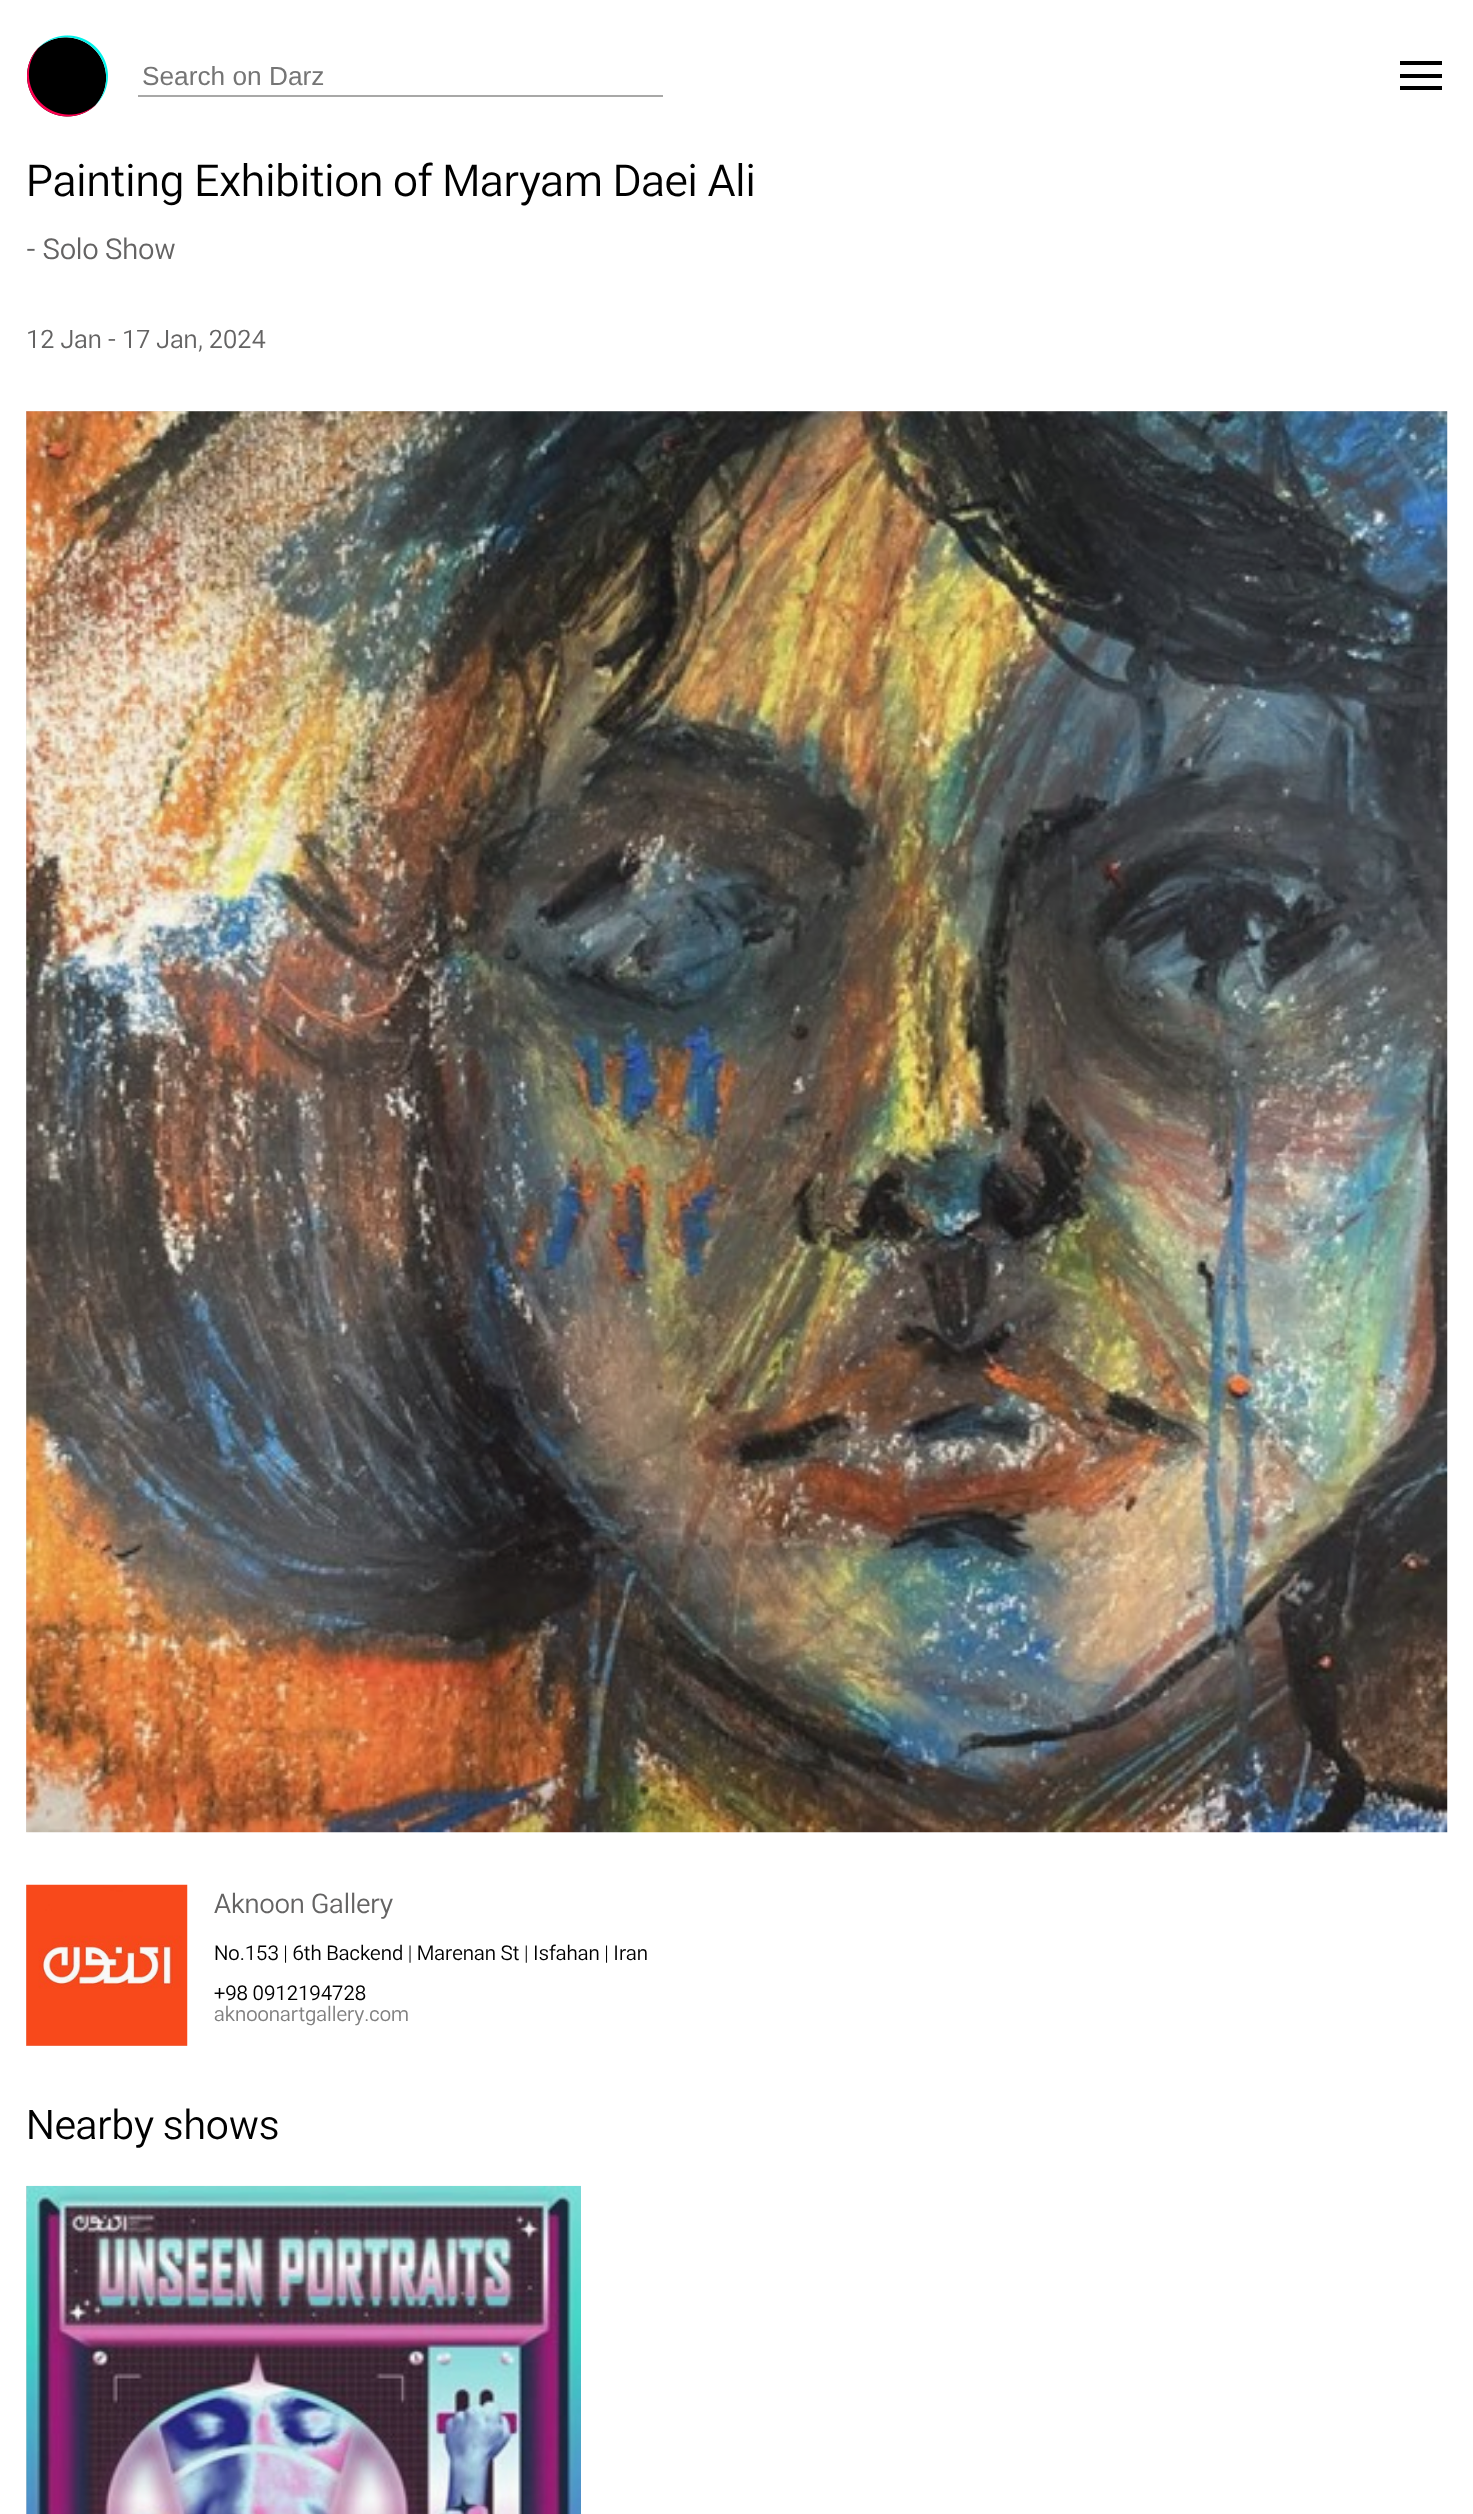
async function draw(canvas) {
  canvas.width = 1473;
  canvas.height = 2514;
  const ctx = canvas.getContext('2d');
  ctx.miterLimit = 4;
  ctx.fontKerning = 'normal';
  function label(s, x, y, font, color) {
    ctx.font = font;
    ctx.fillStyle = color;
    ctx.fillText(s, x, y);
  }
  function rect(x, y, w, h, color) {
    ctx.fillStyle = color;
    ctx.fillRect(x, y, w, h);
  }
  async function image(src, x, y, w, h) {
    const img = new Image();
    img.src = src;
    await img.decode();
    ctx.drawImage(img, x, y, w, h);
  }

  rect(0, 0, 1473, 2514, '#fff');
  await image('assets/img1.png', 27, 35, 81, 82);
  rect(138, 95, 525, 2, '#a8a8a7');
  label('Search on Darz', 142, 85, '26.25px Liberation Sans', '#757575');
  rect(1400, 61, 42, 4, '#000');
  rect(1400, 74, 42, 4, '#000');
  rect(1400, 86, 42, 4, '#000');
  label('Painting Exhibition of Maryam Daei Ali', 26, 196, '45.5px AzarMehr', '#000');
  label('- Solo Show', 26, 259, '29.75px AzarMehr', '#646363');
  label('12 Jan - 17 Jan, 2024', 26, 348, '26.25px AzarMehr', '#646363');
  rect(26, 411, 1421, 1421, '#d8d8d8');
  await image('assets/img2.png', 26, 411, 1422, 1422);
  rect(26, 1885, 161, 161, '#d5d5d5');
  await image('assets/img3.png', 26, 1884, 162, 162);
  label('Aknoon Gallery', 214, 1913, '28px AzarMehr', '#646363');
  label('No.153 | 6th Backend | Marenan St | Isfahan | Iran', 214, 1960, '21px AzarMehr', '#000');
  label('+98 0912194728', 214, 2000, '21px AzarMehr', '#000');
  label('aknoonartgallery.com', 214, 2021, '21px AzarMehr', '#808080');
  label('Nearby shows', 26, 2139, '42px AzarMehr', '#000');
  rect(26, 2186, 555, 328, '#d5d5d5');
  await image('assets/img4.png', 26, 2185, 555, 329);
}

draw(document.querySelector('canvas'));
